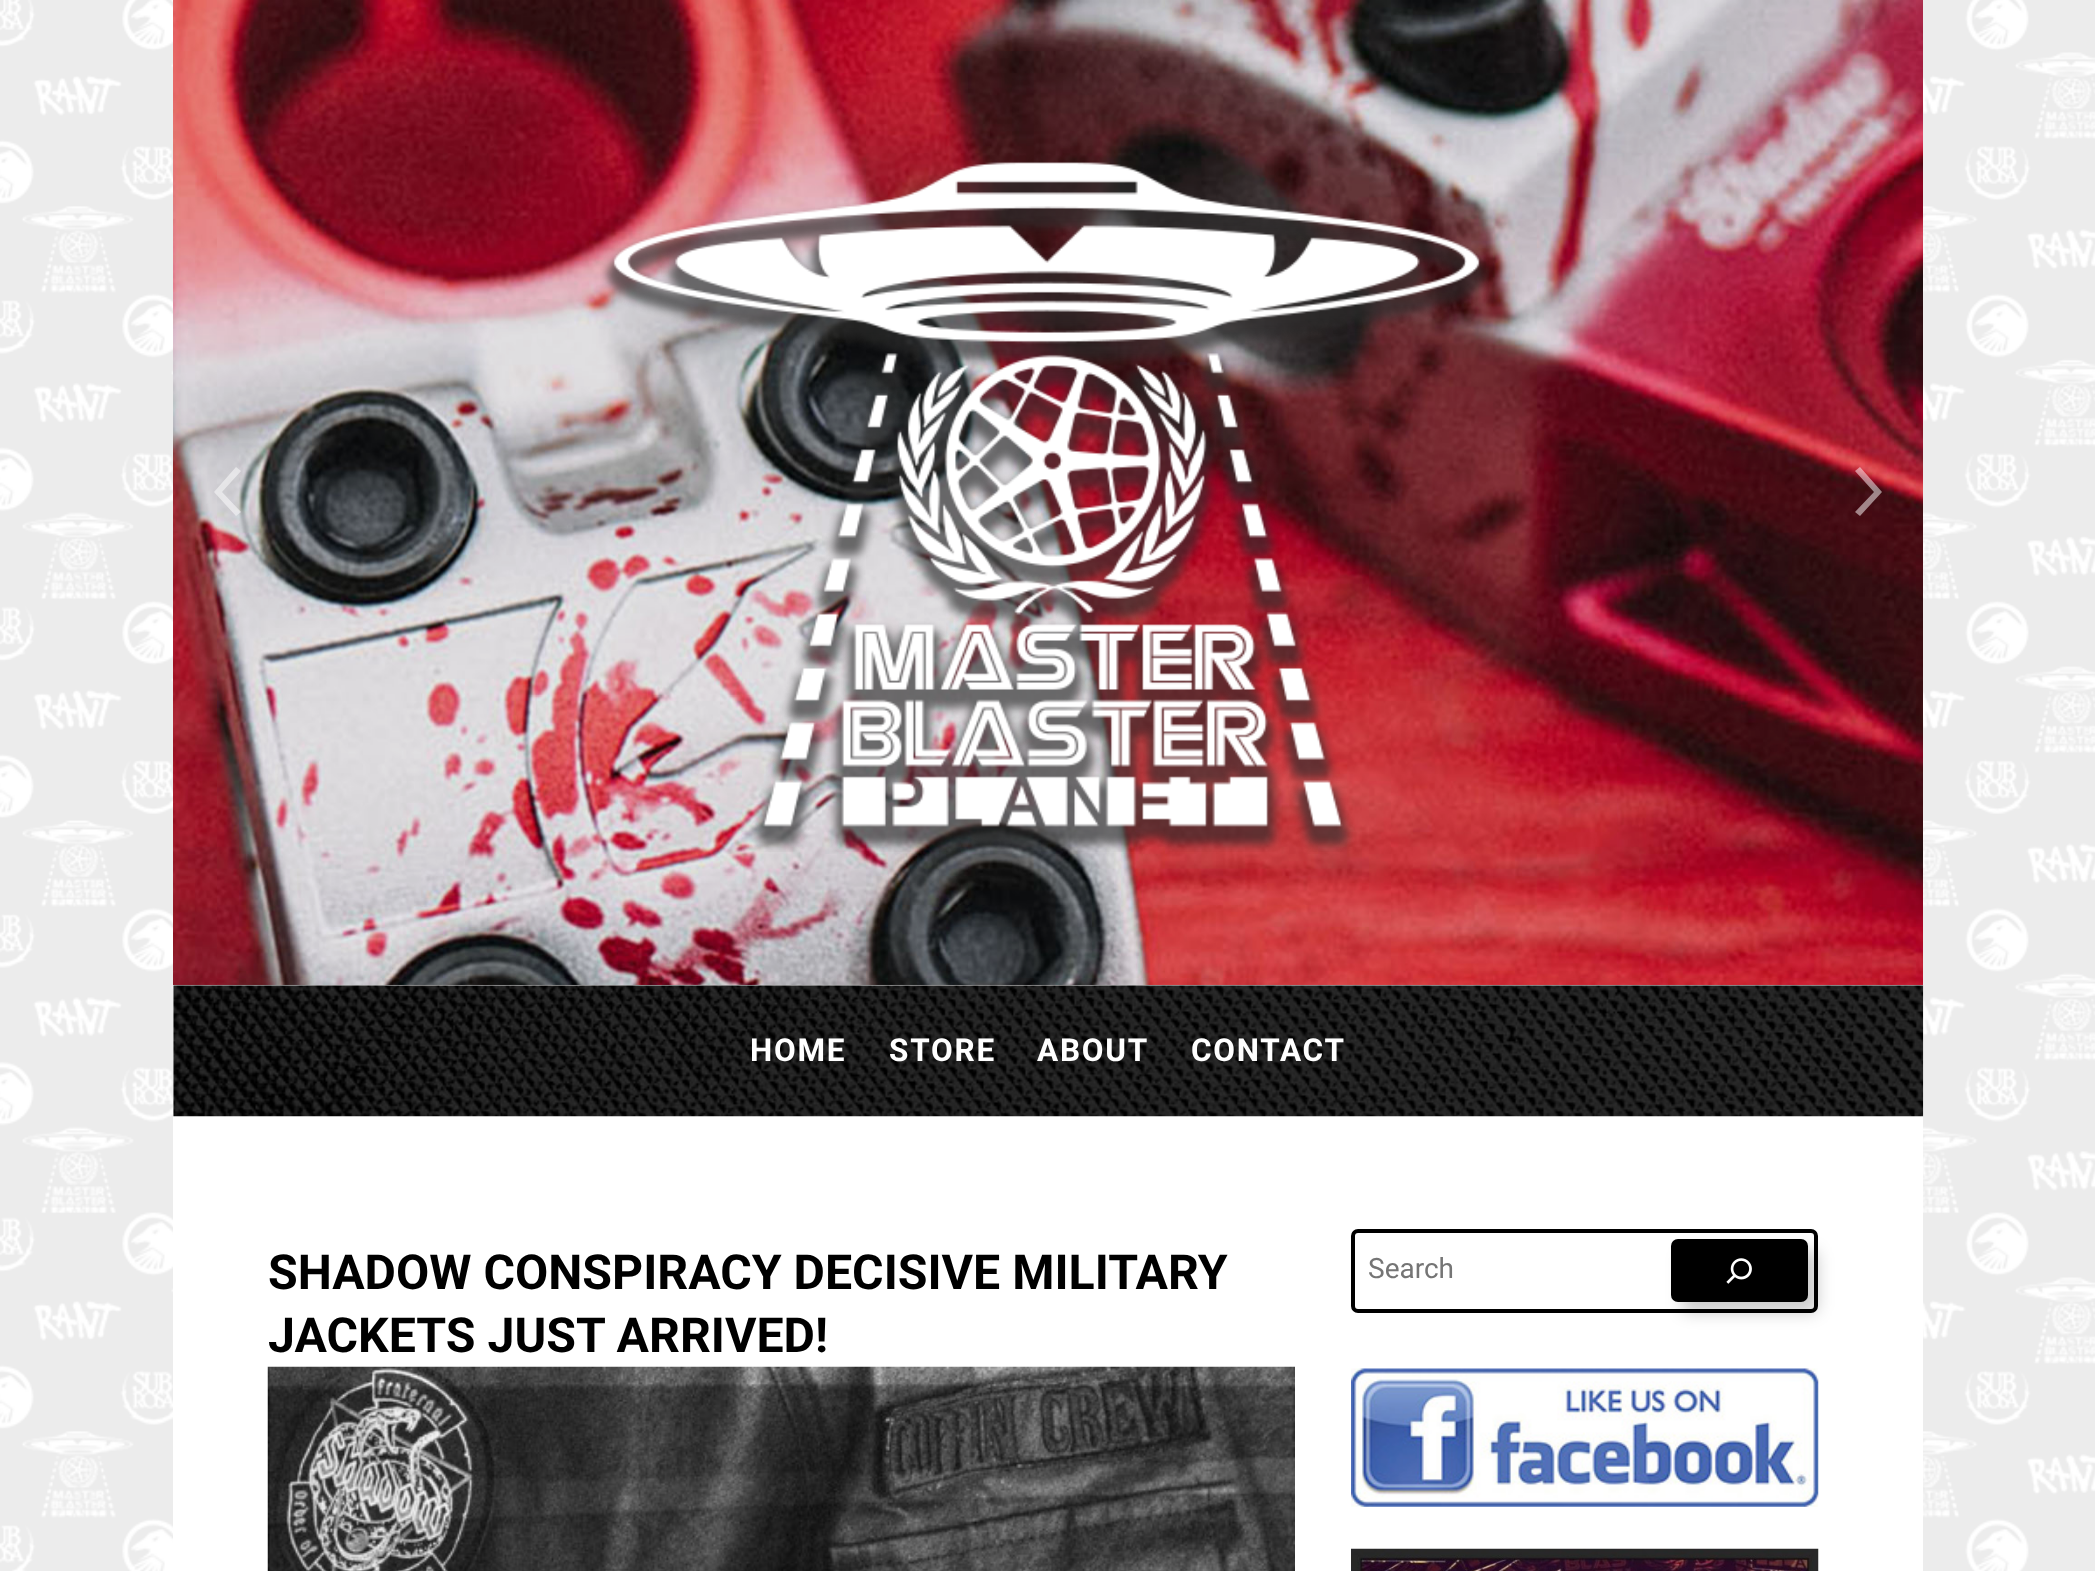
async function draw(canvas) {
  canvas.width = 2095;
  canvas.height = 1571;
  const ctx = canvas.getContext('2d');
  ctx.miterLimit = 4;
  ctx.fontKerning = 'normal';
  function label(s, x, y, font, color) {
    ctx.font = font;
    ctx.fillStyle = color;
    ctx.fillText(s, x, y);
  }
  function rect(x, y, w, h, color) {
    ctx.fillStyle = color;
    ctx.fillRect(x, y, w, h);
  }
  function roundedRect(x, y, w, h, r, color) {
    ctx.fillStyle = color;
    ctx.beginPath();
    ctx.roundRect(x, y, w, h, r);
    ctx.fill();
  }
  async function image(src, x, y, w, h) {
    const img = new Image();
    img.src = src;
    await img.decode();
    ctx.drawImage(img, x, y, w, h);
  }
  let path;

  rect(0, 0, 2095, 1571, '#fff');
  await image('assets/img1.png', 0, 0, 2095, 1571);
  rect(173, 984, 1750, 587, '#fff');
  await image('assets/img2.png', 173, 0, 1750, 985);
  rect(173, 0, 1750, 985, '#0f0f0f1a');
  await image('assets/img3.png', 600, 162, 889, 690);
  ctx.fillStyle = '#ffffff80';
  path = new Path2D('M241 471L236 467L214 492L236 516L241 512L222 492Z');
  ctx.fill(path);
  path = new Path2D('M1860 467L1855 471L1874 492L1855 512L1860 516L1882 492Z');
  ctx.fill(path);
  await image('assets/img4.png', 173, 985, 1751, 132);
  ctx.letterSpacing = '1.75px';
  label('HOME', 750, 1061, 'bold 31.5px Roboto', '#fff');
  label('STORE', 889, 1061, 'bold 31.5px Roboto', '#fff');
  label('ABOUT', 1037, 1061, 'bold 31.5px Roboto', '#fff');
  label('CONTACT', 1191, 1061, 'bold 31.5px Roboto', '#fff');
  ctx.letterSpacing = '0px';
  label('SHADOW CONSPIRACY DECISIVE MILITARY', 268, 1289, 'bold 48.25px Roboto', '#000');
  label('JACKETS JUST ARRIVED!', 268, 1352, 'bold 48.25px Roboto', '#000');
  await image('assets/img5.png', 267, 1366, 1028, 205);
  ctx.beginPath();
  ctx.roundRect(1353, 1231, 463, 80, 5);
  ctx.strokeStyle = '#000';
  ctx.lineWidth = 4;
  ctx.stroke();
  label('Search', 1368, 1278, '28px Roboto', '#757575');
  ctx.fillStyle = '#00000033';
  ctx.filter = 'blur(8px)';
  ctx.beginPath();
  ctx.roundRect(1682, 1250, 136, 63, 7);
  ctx.fill();
  ctx.filter = 'none';
  roundedRect(1671, 1239, 137, 63, 7, '#000');
  await image('assets/img6.png', 1726, 1258, 26, 26);
  await image('assets/img7.png', 1351, 1368, 468, 139);
  await image('assets/img8.png', 1351, 1548, 468, 23);
}

draw(document.querySelector('canvas'));
